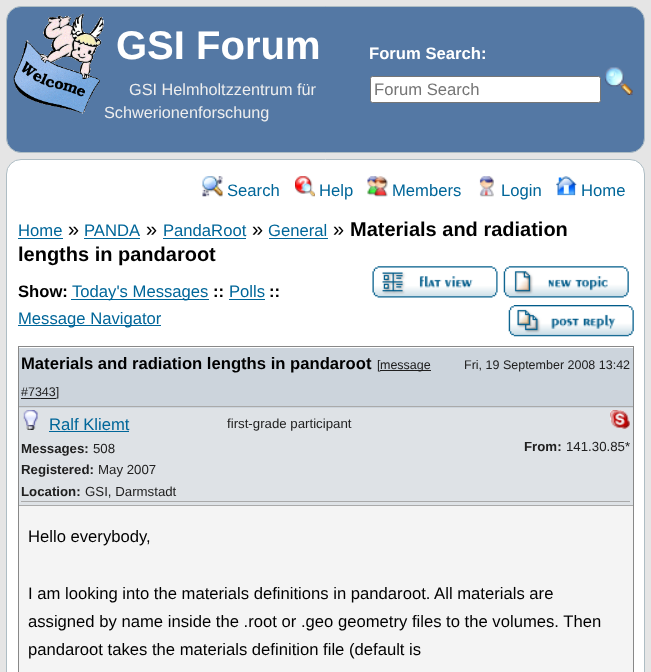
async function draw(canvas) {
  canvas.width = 651;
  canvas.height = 672;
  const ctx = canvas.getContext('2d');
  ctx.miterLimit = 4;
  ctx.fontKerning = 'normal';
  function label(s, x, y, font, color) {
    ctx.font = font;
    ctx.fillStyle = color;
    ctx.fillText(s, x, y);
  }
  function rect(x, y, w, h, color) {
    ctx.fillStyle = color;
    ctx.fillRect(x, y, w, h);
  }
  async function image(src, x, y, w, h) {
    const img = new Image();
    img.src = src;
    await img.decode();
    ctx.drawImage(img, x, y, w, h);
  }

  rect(0, 0, 651, 672, '#e5e5e5');
  ctx.fillStyle = '#5478a4';
  ctx.beginPath();
  ctx.roundRect(6.5, 6.5, 638, 146, 14.5);
  ctx.fill();
  ctx.strokeStyle = '#aebdc4';
  ctx.stroke();
  await image('assets/img1.png', 13, 13, 91, 101);
  label('GSI Forum', 116, 59, 'bold 40px Liberation Sans', '#fff');
  label('Forum Search:', 369, 59, 'bold 16.65px Liberation Sans', '#fff');
  ctx.beginPath();
  ctx.roundRect(370.5, 76.5, 230, 26, 2);
  ctx.fill();
  ctx.strokeStyle = '#767676';
  ctx.stroke();
  label('Forum Search', 374, 95, '16.65px Liberation Sans', '#757575');
  await image('assets/img2.png', 605, 67, 28, 28);
  label('GSI Helmholtzzentrum für', 129, 95, '16.25px Liberation Sans', '#eee');
  label('Schwerionenforschung', 104, 118, '16.25px Liberation Sans', '#eee');
  ctx.fillStyle = '#fff';
  ctx.beginPath();
  ctx.roundRect(6.5, 159.5, 638, 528, 14.5);
  ctx.fill();
  ctx.strokeStyle = '#aebdc4';
  ctx.stroke();
  await image('assets/img3.png', 202, 176, 21, 21);
  label('Search', 227, 196, '16.65px Liberation Sans', '#069');
  await image('assets/img4.png', 295, 176, 20, 21);
  label('Help', 319, 196, '16.65px Liberation Sans', '#069');
  await image('assets/img5.png', 367, 176, 21, 21);
  label('Members', 392, 196, '16.65px Liberation Sans', '#069');
  await image('assets/img6.png', 479, 176, 15, 21);
  label('Login', 501, 196, '16.65px Liberation Sans', '#069');
  await image('assets/img7.png', 556, 176, 21, 20);
  label('Home', 581, 196, '16.65px Liberation Sans', '#069');
  label('Home', 18, 236, '16.65px Liberation Sans', '#069');
  rect(18, 238, 45, 1, '#069');
  label('»', 68, 236, '20px Liberation Sans', '#000');
  label('PANDA', 84, 236, '16.65px Liberation Sans', '#069');
  rect(84, 238, 56, 1, '#069');
  label('»', 146, 236, '20px Liberation Sans', '#000');
  label('PandaRoot', 163, 236, '16.65px Liberation Sans', '#069');
  rect(163, 238, 83, 1, '#069');
  label('»', 252, 236, '20px Liberation Sans', '#000');
  label('General', 268, 236, '16.65px Liberation Sans', '#069');
  rect(269, 238, 59, 1, '#069');
  label('»', 333, 236, '20px Liberation Sans', '#000');
  label('Materials and radiation', 350, 236, 'bold 20px Liberation Sans', '#000');
  label('lengths in pandaroot', 18, 261, 'bold 20px Liberation Sans', '#000');
  label('Show:', 18, 297, 'bold 16.65px Liberation Sans', '#000');
  rect(71, 299, 138, 1, '#069');
  label('Today\'s Messages', 72, 297, '16.65px Liberation Sans', '#069');
  label('::', 213, 297, 'bold 16.65px Liberation Sans', '#000');
  label('Polls', 229, 297, '16.65px Liberation Sans', '#069');
  rect(229, 299, 36, 1, '#069');
  label('::', 269, 297, 'bold 16.65px Liberation Sans', '#000');
  rect(18, 325, 143, 1, '#069');
  label('Message Navigator', 18, 324, '16.65px Liberation Sans', '#069');
  await image('assets/img8.png', 372, 266, 126, 32);
  await image('assets/img9.png', 503, 266, 126, 32);
  await image('assets/img10.png', 508, 305, 126, 32);
  ctx.strokeStyle = '#888';
  ctx.strokeRect(18.5, 346.5, 615, 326);
  rect(19, 348, 614, 60, '#ccd4dc');
  rect(19, 406, 614, 1, '#aaa');
  label('Materials and radiation lengths in pandaroot', 21, 369, 'bold 16.65px Liberation Sans', '#000');
  label('[', 377, 369, '12.5px Liberation Sans', '#202020');
  rect(380, 370, 51, 1, '#202020');
  label('message', 380, 369, '12.5px Liberation Sans', '#202020');
  rect(21, 398, 35, 1, '#202020');
  label('#7343]', 21, 396, '12.5px Liberation Sans', '#202020');
  label('Fri, 19 September 2008 13:42', 464, 369, '12.5px Liberation Sans', '#202020');
  rect(19, 408, 614, 97, '#dee2e6');
  rect(19, 505, 614, 1, '#aaa');
  rect(21, 501, 609, 1, '#aaa');
  await image('assets/img11.png', 23, 410, 15, 20);
  label('Ralf Kliemt', 49, 430, '16.65px Liberation Sans', '#069');
  rect(49, 431, 80, 1, '#069');
  label('Messages:', 21, 453, 'bold 13.25px Liberation Sans', '#202020');
  label('508', 93, 453, '13.25px Liberation Sans', '#202020');
  label('Registered:', 21, 474, 'bold 13.25px Liberation Sans', '#202020');
  label('May 2007', 98, 474, '13.25px Liberation Sans', '#202020');
  label('Location:', 21, 496, 'bold 13.25px Liberation Sans', '#202020');
  label('GSI, Darmstadt', 85, 496, '13.25px Liberation Sans', '#202020');
  label('first-grade participant', 227, 428, '13.25px Liberation Sans', '#202020');
  await image('assets/img12.png', 610, 410, 20, 19);
  label('From:', 524, 451, 'bold 13.25px Liberation Sans', '#202020');
  label('141.30.85*', 566, 451, '13.25px Liberation Sans', '#202020');
  rect(19, 506, 614, 166, '#f4f4f4');
  label('Hello everybody,', 28, 542, '16.65px Liberation Sans', '#000');
  label('I am looking into the materials definitions in pandaroot. All materials are', 28, 599, '16.65px Liberation Sans', '#000');
  label('assigned by name inside the .root or .geo geometry files to the volumes. Then', 28, 627, '16.65px Liberation Sans', '#000');
  label('pandaroot takes the materials definition file (default is', 28, 655, '16.65px Liberation Sans', '#000');
}

draw(document.querySelector('canvas'));
